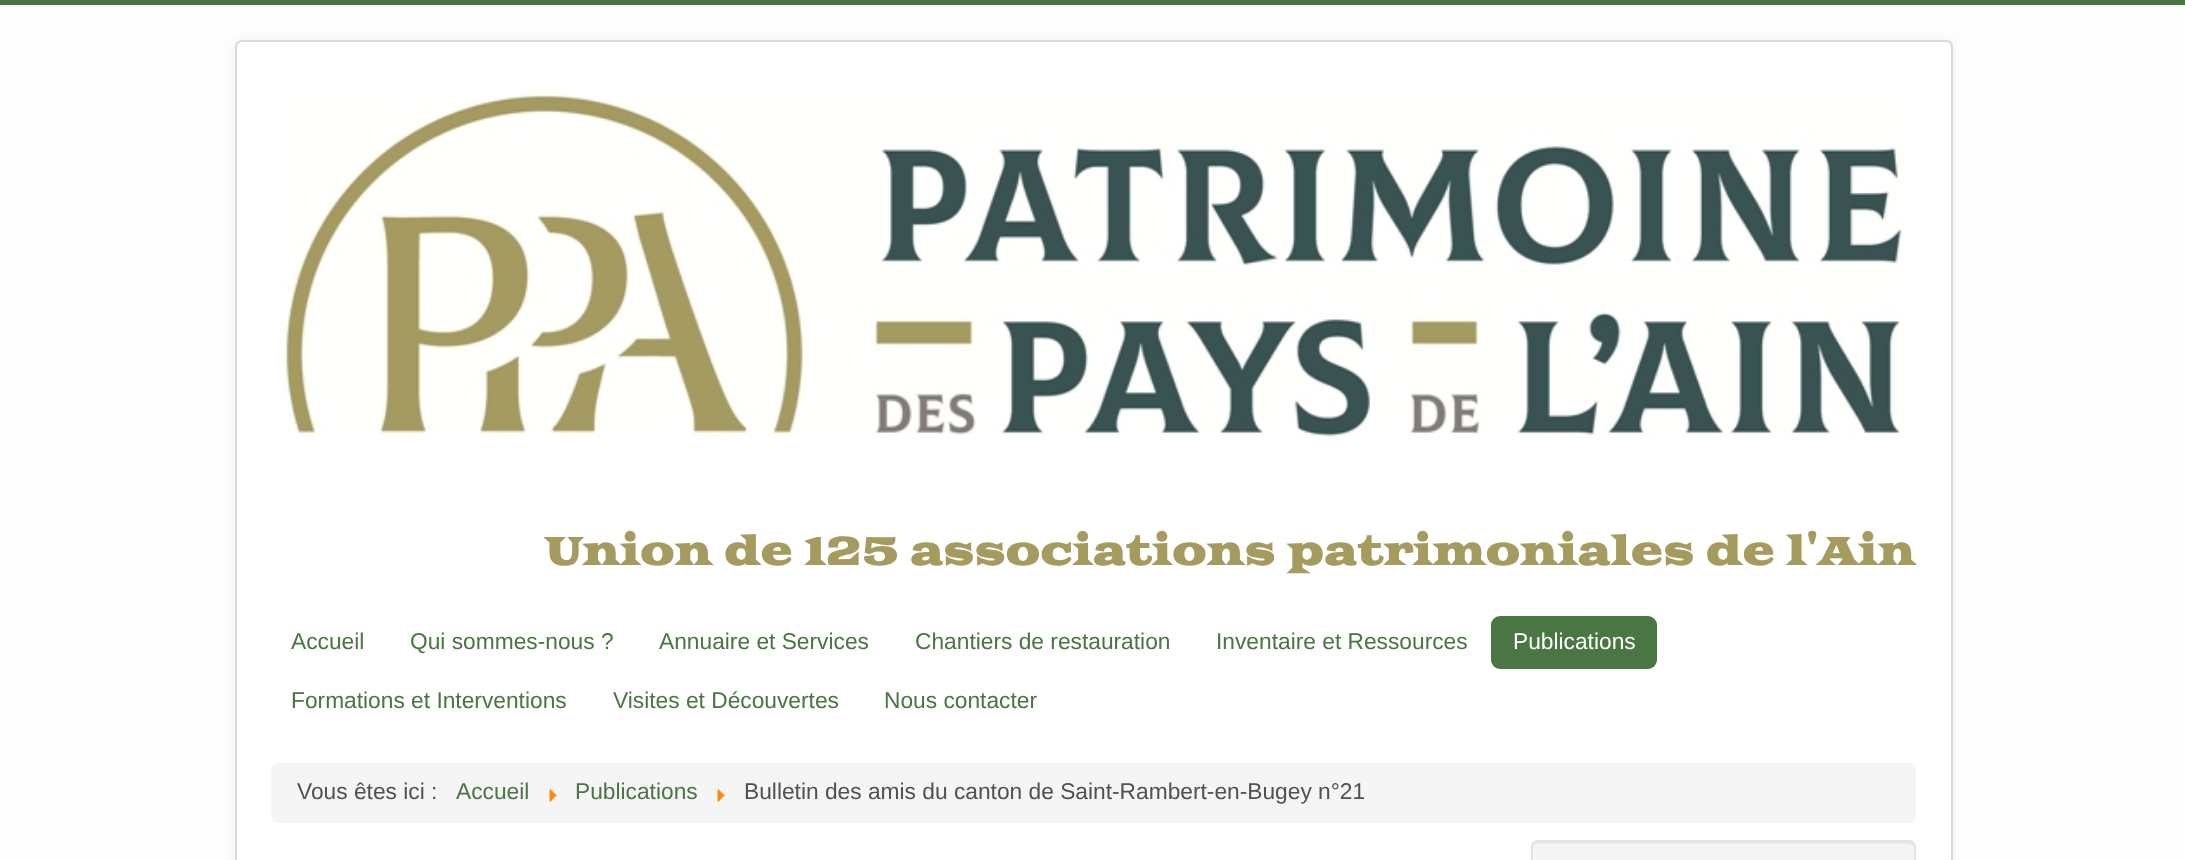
async function draw(canvas) {
  canvas.width = 2185;
  canvas.height = 860;
  const ctx = canvas.getContext('2d');
  ctx.miterLimit = 4;
  ctx.fontKerning = 'normal';
  function label(s, x, y, font, color) {
    ctx.font = font;
    ctx.fillStyle = color;
    ctx.fillText(s, x, y);
  }
  function rect(x, y, w, h, color) {
    ctx.fillStyle = color;
    ctx.fillRect(x, y, w, h);
  }
  function roundedRect(x, y, w, h, r, color) {
    ctx.fillStyle = color;
    ctx.beginPath();
    ctx.roundRect(x, y, w, h, r);
    ctx.fill();
  }
  async function image(src, x, y, w, h) {
    const img = new Image();
    img.src = src;
    await img.decode();
    ctx.drawImage(img, x, y, w, h);
  }
  let path;

  rect(0, 0, 2185, 860, '#fdfdfd');
  rect(0, 0, 2185, 5, '#497642');
  ctx.fillStyle = '#0000000d';
  ctx.filter = 'blur(5px)';
  ctx.beginPath();
  ctx.roundRect(235, 40, 1718, 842, 7);
  ctx.fill();
  ctx.filter = 'none';
  roundedRect(235, 40, 1718, 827, 7, '#fff');
  ctx.beginPath();
  ctx.roundRect(236, 41, 1716, 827, 6);
  ctx.strokeStyle = '#00000026';
  ctx.lineWidth = 2;
  ctx.stroke();
  await image('assets/img1.png', 284, 92, 1620, 345);
  label('Union de 125 associations patrimoniales de l\'Ain', 544, 565, 'bold 38.5px Goblin One', '#a59b5f');
  label('Accueil', 291, 649, '22.75px Liberation Sans', '#497642');
  label('Qui sommes-nous ?', 410, 649, '22.75px Liberation Sans', '#497642');
  label('Annuaire et Services', 659, 649, '22.75px Liberation Sans', '#497642');
  label('Chantiers de restauration', 915, 649, '22.75px Liberation Sans', '#497642');
  label('Inventaire et Ressources', 1216, 649, '22.75px Liberation Sans', '#497642');
  roundedRect(1491, 616, 166, 53, 9, '#497642');
  label('Publications', 1513, 649, '22.75px Liberation Sans', '#fff');
  label('Formations et Interventions', 291, 708, '22.75px Liberation Sans', '#497642');
  label('Visites et Découvertes', 613, 708, '22.75px Liberation Sans', '#497642');
  label('Nous contacter', 884, 708, '22.75px Liberation Sans', '#497642');
  roundedRect(271, 763, 1645, 60, 7, '#f5f5f5');
  label('Vous êtes ici :', 297, 799, '22.75px Liberation Sans', '#515151');
  label('Accueil', 456, 799, '22.75px Liberation Sans', '#497642');
  await image('assets/img2.png', 549, 788, 8, 14);
  label('Publications', 575, 799, '22.75px Liberation Sans', '#497642');
  await image('assets/img2.png', 717, 788, 8, 14);
  label('Bulletin des amis du canton de Saint-Rambert-en-Bugey n°21', 744, 799, '22.75px Liberation Sans', '#515151');
  roundedRect(1531, 840, 385, 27, 7, '#f5f5f5');
  ctx.fillStyle = '#e9e9e9';
  path = new Path2D('M1538 844H1909C1912 844 1914 846 1914 849V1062V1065C1914 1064 1915 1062 1915 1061V847C1915 844 1913 842 1910 842H1538C1535 842 1533 844 1533 847V849C1533 846 1535 844 1538 844Z');
  ctx.fill(path);
  ctx.beginPath();
  ctx.roundRect(1532, 841, 383, 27, 6);
  ctx.strokeStyle = '#e3e3e3';
  ctx.stroke();
}

draw(document.querySelector('canvas'));
